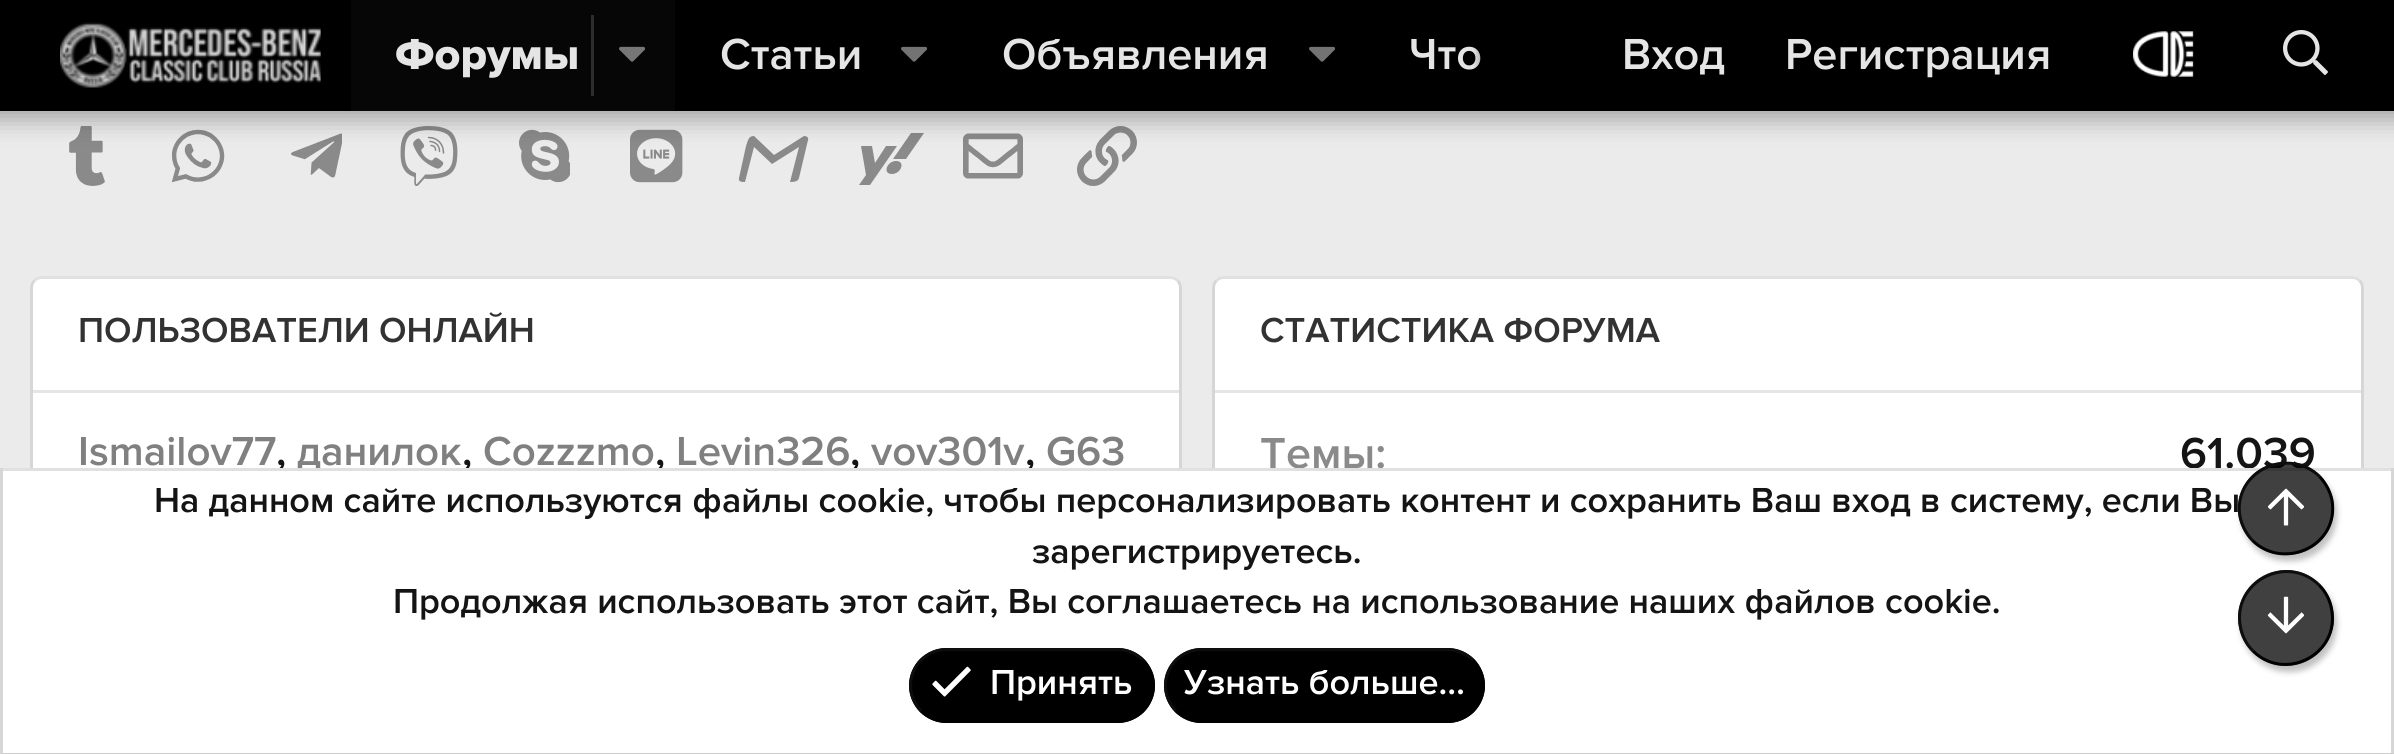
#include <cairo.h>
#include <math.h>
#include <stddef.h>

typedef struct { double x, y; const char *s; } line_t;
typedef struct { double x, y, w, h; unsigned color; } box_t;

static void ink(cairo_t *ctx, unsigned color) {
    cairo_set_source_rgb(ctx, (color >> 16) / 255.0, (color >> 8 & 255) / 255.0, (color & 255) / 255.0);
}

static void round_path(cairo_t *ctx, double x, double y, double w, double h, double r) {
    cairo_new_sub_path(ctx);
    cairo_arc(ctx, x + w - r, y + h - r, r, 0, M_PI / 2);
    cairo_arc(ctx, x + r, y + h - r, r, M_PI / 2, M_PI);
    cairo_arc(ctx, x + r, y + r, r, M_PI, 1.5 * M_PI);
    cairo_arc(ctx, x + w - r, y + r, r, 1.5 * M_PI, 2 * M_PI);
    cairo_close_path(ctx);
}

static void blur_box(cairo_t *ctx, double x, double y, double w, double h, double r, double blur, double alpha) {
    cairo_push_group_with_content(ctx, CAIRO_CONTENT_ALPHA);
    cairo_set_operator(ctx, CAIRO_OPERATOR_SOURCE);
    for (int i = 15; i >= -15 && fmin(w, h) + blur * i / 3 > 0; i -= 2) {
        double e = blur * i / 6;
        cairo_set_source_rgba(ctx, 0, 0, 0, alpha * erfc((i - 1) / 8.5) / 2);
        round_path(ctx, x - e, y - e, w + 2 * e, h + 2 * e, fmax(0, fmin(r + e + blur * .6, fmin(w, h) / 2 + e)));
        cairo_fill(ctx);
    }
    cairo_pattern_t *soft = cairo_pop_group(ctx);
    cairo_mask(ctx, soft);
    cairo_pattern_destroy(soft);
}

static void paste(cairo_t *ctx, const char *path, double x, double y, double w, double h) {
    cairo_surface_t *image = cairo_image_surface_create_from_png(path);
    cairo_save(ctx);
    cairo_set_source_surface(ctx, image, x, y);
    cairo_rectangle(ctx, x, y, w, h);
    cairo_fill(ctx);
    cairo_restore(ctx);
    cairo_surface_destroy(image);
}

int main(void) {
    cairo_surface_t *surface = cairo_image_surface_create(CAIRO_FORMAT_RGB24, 2394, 754);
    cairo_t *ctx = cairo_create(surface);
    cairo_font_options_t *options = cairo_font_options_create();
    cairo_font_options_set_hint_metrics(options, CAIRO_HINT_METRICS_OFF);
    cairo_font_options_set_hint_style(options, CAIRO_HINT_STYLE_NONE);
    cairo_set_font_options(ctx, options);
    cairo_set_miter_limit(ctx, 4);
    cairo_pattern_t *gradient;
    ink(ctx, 0xEBEBEB);
    cairo_paint(ctx);
    paste(ctx, "media/7.png", 69, 126, 36, 60);
    paste(ctx, "media/8.png", 171, 129, 54, 54);
    paste(ctx, "media/9.png", 291, 133, 51, 45);
    paste(ctx, "media/10.png", 400, 126, 58, 60);
    paste(ctx, "media/11.png", 519, 129, 51, 54);
    paste(ctx, "media/12.png", 630, 129, 53, 54);
    ink(ctx, 0x8A8A8A);
    cairo_new_path(ctx);
    cairo_move_to(ctx, 808, 140);
    cairo_line_to(ctx, 799, 178);
    cairo_curve_to(ctx, 798, 182, 793, 182, 790, 182);
    cairo_line_to(ctx, 799, 147);
    cairo_line_to(ctx, 772, 164);
    cairo_line_to(ctx, 754, 147);
    cairo_line_to(ctx, 745, 182);
    cairo_curve_to(ctx, 742, 182, 738, 182, 739, 178);
    cairo_line_to(ctx, 746, 146);
    cairo_curve_to(ctx, 748, 141, 748, 136, 754, 136);
    cairo_line_to(ctx, 774, 155);
    cairo_line_to(ctx, 804, 136);
    cairo_curve_to(ctx, 806, 136, 809, 137, 808, 140);
    cairo_close_path(ctx);
    cairo_fill(ctx);
    cairo_new_path(ctx);
    cairo_move_to(ctx, 911, 133);
    cairo_line_to(ctx, 893, 159);
    cairo_line_to(ctx, 906, 159);
    cairo_line_to(ctx, 924, 133);
    cairo_close_path(ctx);
    cairo_move_to(ctx, 861, 146);
    cairo_line_to(ctx, 866, 175);
    cairo_line_to(ctx, 859, 185);
    cairo_line_to(ctx, 870, 185);
    cairo_line_to(ctx, 897, 146);
    cairo_line_to(ctx, 886, 146);
    cairo_line_to(ctx, 875, 163);
    cairo_line_to(ctx, 872, 146);
    cairo_close_path(ctx);
    cairo_move_to(ctx, 896, 161);
    cairo_curve_to(ctx, 887, 161, 882, 174, 892, 174);
    cairo_curve_to(ctx, 901, 174, 906, 161, 896, 161);
    cairo_close_path(ctx);
    cairo_fill(ctx);
    paste(ctx, "media/13.png", 963, 133, 60, 46);
    paste(ctx, "media/14.png", 1077, 126, 60, 60);
    ink(ctx, 0x000000);
    blur_box(ctx, -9, -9, 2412, 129, 0, 12, 0.3);
    ink(ctx, 0x000000);
    cairo_rectangle(ctx, 0, 0, 2394, 111);
    cairo_fill(ctx);
    paste(ctx, "media/1.png", 60, 22, 261, 66);
    ink(ctx, 0x060606);
    cairo_rectangle(ctx, 351, 0, 324, 111);
    cairo_fill(ctx);
    cairo_select_font_face(ctx, "Proxima Nova ExtraBold", CAIRO_FONT_SLANT_NORMAL, CAIRO_FONT_WEIGHT_NORMAL);
    cairo_set_font_size(ctx, 45);
    ink(ctx, 0xE5E5E5);
    cairo_move_to(ctx, 395, 69);
    cairo_show_text(ctx, "Форумы");
    ink(ctx, 0x2D2D2D);
    cairo_rectangle(ctx, 591, 15, 3, 81);
    cairo_fill(ctx);
    paste(ctx, "media/2.png", 619, 46, 27, 16);
    cairo_select_font_face(ctx, "Proxima Nova SemiBold", CAIRO_FONT_SLANT_NORMAL, CAIRO_FONT_WEIGHT_NORMAL);
    ink(ctx, 0xE5E5E5);
    cairo_move_to(ctx, 720, 69);
    cairo_show_text(ctx, "Статьи");
    paste(ctx, "media/3.png", 901, 46, 27, 16);
    cairo_move_to(ctx, 1002, 69);
    cairo_show_text(ctx, "Объявления");
    paste(ctx, "media/4.png", 1309, 46, 26, 16);
    cairo_move_to(ctx, 1409, 69);
    cairo_show_text(ctx, "Что");
    gradient = cairo_pattern_create_linear(1473, 56, 1593, 56);
    cairo_pattern_add_color_stop_rgba(gradient, 0, 0, 0, 0, 0);
    cairo_pattern_add_color_stop_rgba(gradient, 0.33, 0, 0, 0, 1);
    cairo_set_source(ctx, gradient);
    cairo_pattern_destroy(gradient);
    cairo_rectangle(ctx, 1474, 48, 7, 21);
    cairo_fill(ctx);
    ink(ctx, 0xE5E5E5);
    cairo_move_to(ctx, 1622, 69);
    cairo_show_text(ctx, "Вход");
    cairo_move_to(ctx, 1785, 69);
    cairo_show_text(ctx, "Регистрация");
    paste(ctx, "media/5.png", 2133, 31, 61, 46);
    paste(ctx, "media/6.png", 2283, 30, 45, 45);
    ink(ctx, 0xFFFFFF);
    round_path(ctx, 30, 276, 1152, 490, 12);
    cairo_fill(ctx);
    cairo_new_path(ctx);
    cairo_move_to(ctx, 34.5, 280.5);
    cairo_curve_to(ctx, 36.5, 278.5, 39, 277.5, 42, 277.5);
    cairo_line_to(ctx, 1170, 277.5);
    cairo_curve_to(ctx, 1173, 277.5, 1175.5, 278.5, 1177.5, 280.5);
    ink(ctx, 0xE0E0E0);
    cairo_set_line_width(ctx, 3);
    cairo_stroke(ctx);
    cairo_new_path(ctx);
    cairo_move_to(ctx, 1177.5, 280.5);
    cairo_curve_to(ctx, 1179.5, 282.5, 1180.5, 285, 1180.5, 288);
    cairo_line_to(ctx, 1180.5, 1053);
    cairo_curve_to(ctx, 1180.5, 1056, 1179.5, 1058.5, 1177.5, 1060.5);
    ink(ctx, 0xD6D6D6);
    cairo_stroke(ctx);
    cairo_new_path(ctx);
    cairo_move_to(ctx, 34.5, 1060.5);
    cairo_curve_to(ctx, 32.5, 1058.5, 31.5, 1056, 31.5, 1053);
    cairo_line_to(ctx, 31.5, 288);
    cairo_curve_to(ctx, 31.5, 285, 32.5, 282.5, 34.5, 280.5);
    cairo_stroke(ctx);
    ink(ctx, 0xE5E5E5);
    cairo_rectangle(ctx, 33, 390, 1146, 3);
    cairo_fill(ctx);
    cairo_set_font_size(ctx, 36);
    ink(ctx, 0x323232);
    cairo_move_to(ctx, 78, 342);
    cairo_show_text(ctx, "ПОЛЬЗОВАТЕЛИ ОНЛАЙН");
    cairo_set_font_size(ctx, 42);
    ink(ctx, 0x808080);
    cairo_move_to(ctx, 78, 465);
    cairo_show_text(ctx, "Ismailov77");
    ink(ctx, 0x141414);
    cairo_move_to(ctx, 276, 465);
    cairo_show_text(ctx, ",");
    ink(ctx, 0x808080);
    cairo_move_to(ctx, 297, 465);
    cairo_show_text(ctx, "данилок");
    ink(ctx, 0x141414);
    cairo_move_to(ctx, 462, 465);
    cairo_show_text(ctx, ",");
    ink(ctx, 0x808080);
    cairo_move_to(ctx, 483, 465);
    cairo_show_text(ctx, "Cozzzmo");
    ink(ctx, 0x141414);
    cairo_move_to(ctx, 655, 465);
    cairo_show_text(ctx, ",");
    ink(ctx, 0x808080);
    cairo_move_to(ctx, 676, 465);
    cairo_show_text(ctx, "Levin326");
    ink(ctx, 0x141414);
    cairo_move_to(ctx, 850, 465);
    cairo_show_text(ctx, ",");
    ink(ctx, 0x808080);
    cairo_move_to(ctx, 871, 465);
    cairo_show_text(ctx, "vov301v");
    ink(ctx, 0x141414);
    cairo_move_to(ctx, 1025, 465);
    cairo_show_text(ctx, ",");
    ink(ctx, 0x808080);
    cairo_move_to(ctx, 1046, 465);
    cairo_show_text(ctx, "G63");
    ink(ctx, 0xFFFFFF);
    round_path(ctx, 1212, 276, 1152, 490, 12);
    cairo_fill(ctx);
    cairo_new_path(ctx);
    cairo_move_to(ctx, 1216.5, 280.5);
    cairo_curve_to(ctx, 1218.5, 278.5, 1221, 277.5, 1224, 277.5);
    cairo_line_to(ctx, 2352, 277.5);
    cairo_curve_to(ctx, 2355, 277.5, 2357.5, 278.5, 2359.5, 280.5);
    ink(ctx, 0xE0E0E0);
    cairo_stroke(ctx);
    cairo_new_path(ctx);
    cairo_move_to(ctx, 2359.5, 280.5);
    cairo_curve_to(ctx, 2361.5, 282.5, 2362.5, 285, 2362.5, 288);
    cairo_line_to(ctx, 2362.5, 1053);
    cairo_curve_to(ctx, 2362.5, 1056, 2361.5, 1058.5, 2359.5, 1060.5);
    ink(ctx, 0xD6D6D6);
    cairo_stroke(ctx);
    cairo_new_path(ctx);
    cairo_move_to(ctx, 1216.5, 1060.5);
    cairo_curve_to(ctx, 1214.5, 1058.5, 1213.5, 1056, 1213.5, 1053);
    cairo_line_to(ctx, 1213.5, 288);
    cairo_curve_to(ctx, 1213.5, 285, 1214.5, 282.5, 1216.5, 280.5);
    cairo_stroke(ctx);
    ink(ctx, 0xE5E5E5);
    cairo_rectangle(ctx, 1215, 390, 1146, 3);
    cairo_fill(ctx);
    cairo_set_font_size(ctx, 36);
    ink(ctx, 0x323232);
    cairo_move_to(ctx, 1260, 342);
    cairo_show_text(ctx, "СТАТИСТИКА ФОРУМА");
    cairo_set_font_size(ctx, 45);
    ink(ctx, 0x8A8A8A);
    cairo_move_to(ctx, 1260, 468);
    cairo_show_text(ctx, "Темы:");
    ink(ctx, 0x141414);
    cairo_move_to(ctx, 2180, 468);
    cairo_show_text(ctx, "61.039");
    {
        static const box_t items[] = {
            {3, 471, 2388, 282, 0xFFFFFF},
            {0, 468, 2394, 3, 0xE0E0E0},
            {2391, 468, 3, 286, 0xD6D6D6},
            {0, 753, 2394, 1, 0xCCCCCC},
            {0, 468, 3, 286, 0xD6D6D6},
        };
        for (size_t i = 0; i < sizeof items / sizeof *items; i++) {
            ink(ctx, items[i].color);
            cairo_rectangle(ctx, items[i].x, items[i].y, items[i].w, items[i].h);
            cairo_fill(ctx);
        }
    }
    cairo_set_font_size(ctx, 36);
    ink(ctx, 0x141414);
    {
        static const line_t items[] = {
            {154, 512, "На данном сайте используются файлы cookie, чтобы персонализировать контент и сохранить Ваш вход в систему, если Вы"},
            {1032, 563, "зарегистрируетесь."},
            {393, 613, "Продолжая использовать этот сайт, Вы соглашаетесь на использование наших файлов cookie."},
        };
        for (size_t i = 0; i < sizeof items / sizeof *items; i++) {
            cairo_move_to(ctx, items[i].x, items[i].y);
            cairo_show_text(ctx, items[i].s);
        }
    }
    ink(ctx, 0x000000);
    round_path(ctx, 909, 648, 246, 75, 37.5);
    cairo_fill(ctx);
    cairo_new_path(ctx);
    cairo_move_to(ctx, 1143, 660);
    cairo_curve_to(ctx, 1149.5, 667, 1153.5, 676, 1153.5, 685.5);
    cairo_curve_to(ctx, 1153.5, 695, 1149.5, 704, 1143, 711);
    cairo_curve_to(ctx, 1136, 717.5, 1127, 721.5, 1117.5, 721.5);
    cairo_line_to(ctx, 946.5, 721.5);
    cairo_curve_to(ctx, 937, 721.5, 928, 717.5, 921, 711);
    cairo_stroke(ctx);
    cairo_new_path(ctx);
    cairo_move_to(ctx, 921, 711);
    cairo_curve_to(ctx, 914.5, 704, 910.5, 695, 910.5, 685.5);
    cairo_curve_to(ctx, 910.5, 676, 914.5, 667, 921, 660);
    cairo_curve_to(ctx, 928, 653.5, 937, 649.5, 946.5, 649.5);
    cairo_line_to(ctx, 1117.5, 649.5);
    cairo_curve_to(ctx, 1127, 649.5, 1136, 653.5, 1143, 660);
    ink(ctx, 0x0D0D0D);
    cairo_stroke(ctx);
    paste(ctx, "media/15.png", 932, 666, 39, 31);
    ink(ctx, 0xFFFFFF);
    cairo_move_to(ctx, 990, 694);
    cairo_show_text(ctx, "Принять");
    ink(ctx, 0x000000);
    round_path(ctx, 1164, 648, 321, 75, 37.5);
    cairo_fill(ctx);
    cairo_new_path(ctx);
    cairo_move_to(ctx, 1473, 660);
    cairo_curve_to(ctx, 1479.5, 667, 1483.5, 676, 1483.5, 685.5);
    cairo_curve_to(ctx, 1483.5, 695, 1479.5, 704, 1473, 711);
    cairo_curve_to(ctx, 1466, 717.5, 1457, 721.5, 1447.5, 721.5);
    cairo_line_to(ctx, 1201.5, 721.5);
    cairo_curve_to(ctx, 1192, 721.5, 1183, 717.5, 1176, 711);
    cairo_stroke(ctx);
    cairo_new_path(ctx);
    cairo_move_to(ctx, 1176, 711);
    cairo_curve_to(ctx, 1169.5, 704, 1165.5, 695, 1165.5, 685.5);
    cairo_curve_to(ctx, 1165.5, 676, 1169.5, 667, 1176, 660);
    cairo_curve_to(ctx, 1183, 653.5, 1192, 649.5, 1201.5, 649.5);
    cairo_line_to(ctx, 1447.5, 649.5);
    cairo_curve_to(ctx, 1457, 649.5, 1466, 653.5, 1473, 660);
    ink(ctx, 0x0D0D0D);
    cairo_stroke(ctx);
    ink(ctx, 0xFFFFFF);
    cairo_move_to(ctx, 1184, 694);
    cairo_show_text(ctx, "Узнать больше…");
    cairo_save(ctx);
    cairo_set_fill_rule(ctx, CAIRO_FILL_RULE_EVEN_ODD);
    cairo_new_path(ctx);
    cairo_move_to(ctx, 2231, 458);
    cairo_line_to(ctx, 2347, 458);
    cairo_line_to(ctx, 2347, 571);
    cairo_line_to(ctx, 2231, 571);
    cairo_close_path(ctx);
    cairo_move_to(ctx, 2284.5, 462);
    cairo_line_to(ctx, 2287.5, 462);
    cairo_curve_to(ctx, 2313, 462, 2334, 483, 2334, 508.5);
    cairo_curve_to(ctx, 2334, 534, 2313, 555, 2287.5, 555);
    cairo_line_to(ctx, 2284.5, 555);
    cairo_curve_to(ctx, 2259, 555, 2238, 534, 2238, 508.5);
    cairo_curve_to(ctx, 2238, 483, 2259, 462, 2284.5, 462);
    cairo_close_path(ctx);
    cairo_clip(ctx);
    ink(ctx, 0x000000);
    blur_box(ctx, 2241, 468, 96, 93, 46.5, 3, 0.25);
    cairo_restore(ctx);
    cairo_set_source_rgba(ctx, 0, 0, 0, 0.75);
    round_path(ctx, 2238, 462, 96, 93, 46.5);
    cairo_fill(ctx);
    cairo_new_path(ctx);
    cairo_move_to(ctx, 2319.5, 476.5);
    cairo_curve_to(ctx, 2326.5, 484, 2331.5, 494, 2332.5, 504);
    cairo_curve_to(ctx, 2336.5, 547.5, 2282.5, 570, 2252.5, 540.5);
    ink(ctx, 0x000000);
    cairo_stroke(ctx);
    cairo_new_path(ctx);
    cairo_move_to(ctx, 2252.5, 540.5);
    cairo_curve_to(ctx, 2245.5, 533, 2240.5, 523, 2239.5, 513);
    cairo_curve_to(ctx, 2235.5, 469.5, 2289.5, 447, 2319.5, 476.5);
    ink(ctx, 0x0D0D0D);
    cairo_stroke(ctx);
    paste(ctx, "media/16.png", 2267, 488, 38, 38);
    cairo_save(ctx);
    cairo_set_fill_rule(ctx, CAIRO_FILL_RULE_EVEN_ODD);
    cairo_new_path(ctx);
    cairo_move_to(ctx, 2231, 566);
    cairo_line_to(ctx, 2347, 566);
    cairo_line_to(ctx, 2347, 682);
    cairo_line_to(ctx, 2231, 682);
    cairo_close_path(ctx);
    cairo_move_to(ctx, 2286, 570);
    cairo_curve_to(ctx, 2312.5, 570, 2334, 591.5, 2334, 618);
    cairo_curve_to(ctx, 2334, 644.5, 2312.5, 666, 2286, 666);
    cairo_curve_to(ctx, 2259.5, 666, 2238, 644.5, 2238, 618);
    cairo_curve_to(ctx, 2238, 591.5, 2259.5, 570, 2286, 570);
    cairo_close_path(ctx);
    cairo_clip(ctx);
    ink(ctx, 0x000000);
    blur_box(ctx, 2241, 576, 96, 96, 48, 3, 0.25);
    cairo_restore(ctx);
    cairo_set_source_rgba(ctx, 0, 0, 0, 0.75);
    cairo_arc(ctx, 2286, 618, 48, 0, 2 * M_PI);
    cairo_fill(ctx);
    cairo_new_path(ctx);
    cairo_move_to(ctx, 2319, 585);
    cairo_curve_to(ctx, 2325.5, 591.5, 2330, 600, 2331.5, 609);
    cairo_curve_to(ctx, 2340.5, 653.5, 2285.5, 683, 2253, 651);
    ink(ctx, 0x000000);
    cairo_stroke(ctx);
    cairo_new_path(ctx);
    cairo_move_to(ctx, 2253, 651);
    cairo_curve_to(ctx, 2246.5, 644.5, 2242, 636, 2240.5, 627);
    cairo_curve_to(ctx, 2231.5, 582.5, 2286.5, 553, 2319, 585);
    ink(ctx, 0x0D0D0D);
    cairo_stroke(ctx);
    paste(ctx, "media/17.png", 2267, 596, 38, 38);
    cairo_surface_write_to_png(surface, "image.png");
    cairo_font_options_destroy(options);
    cairo_destroy(ctx);
    cairo_surface_destroy(surface);
    return 0;
}
